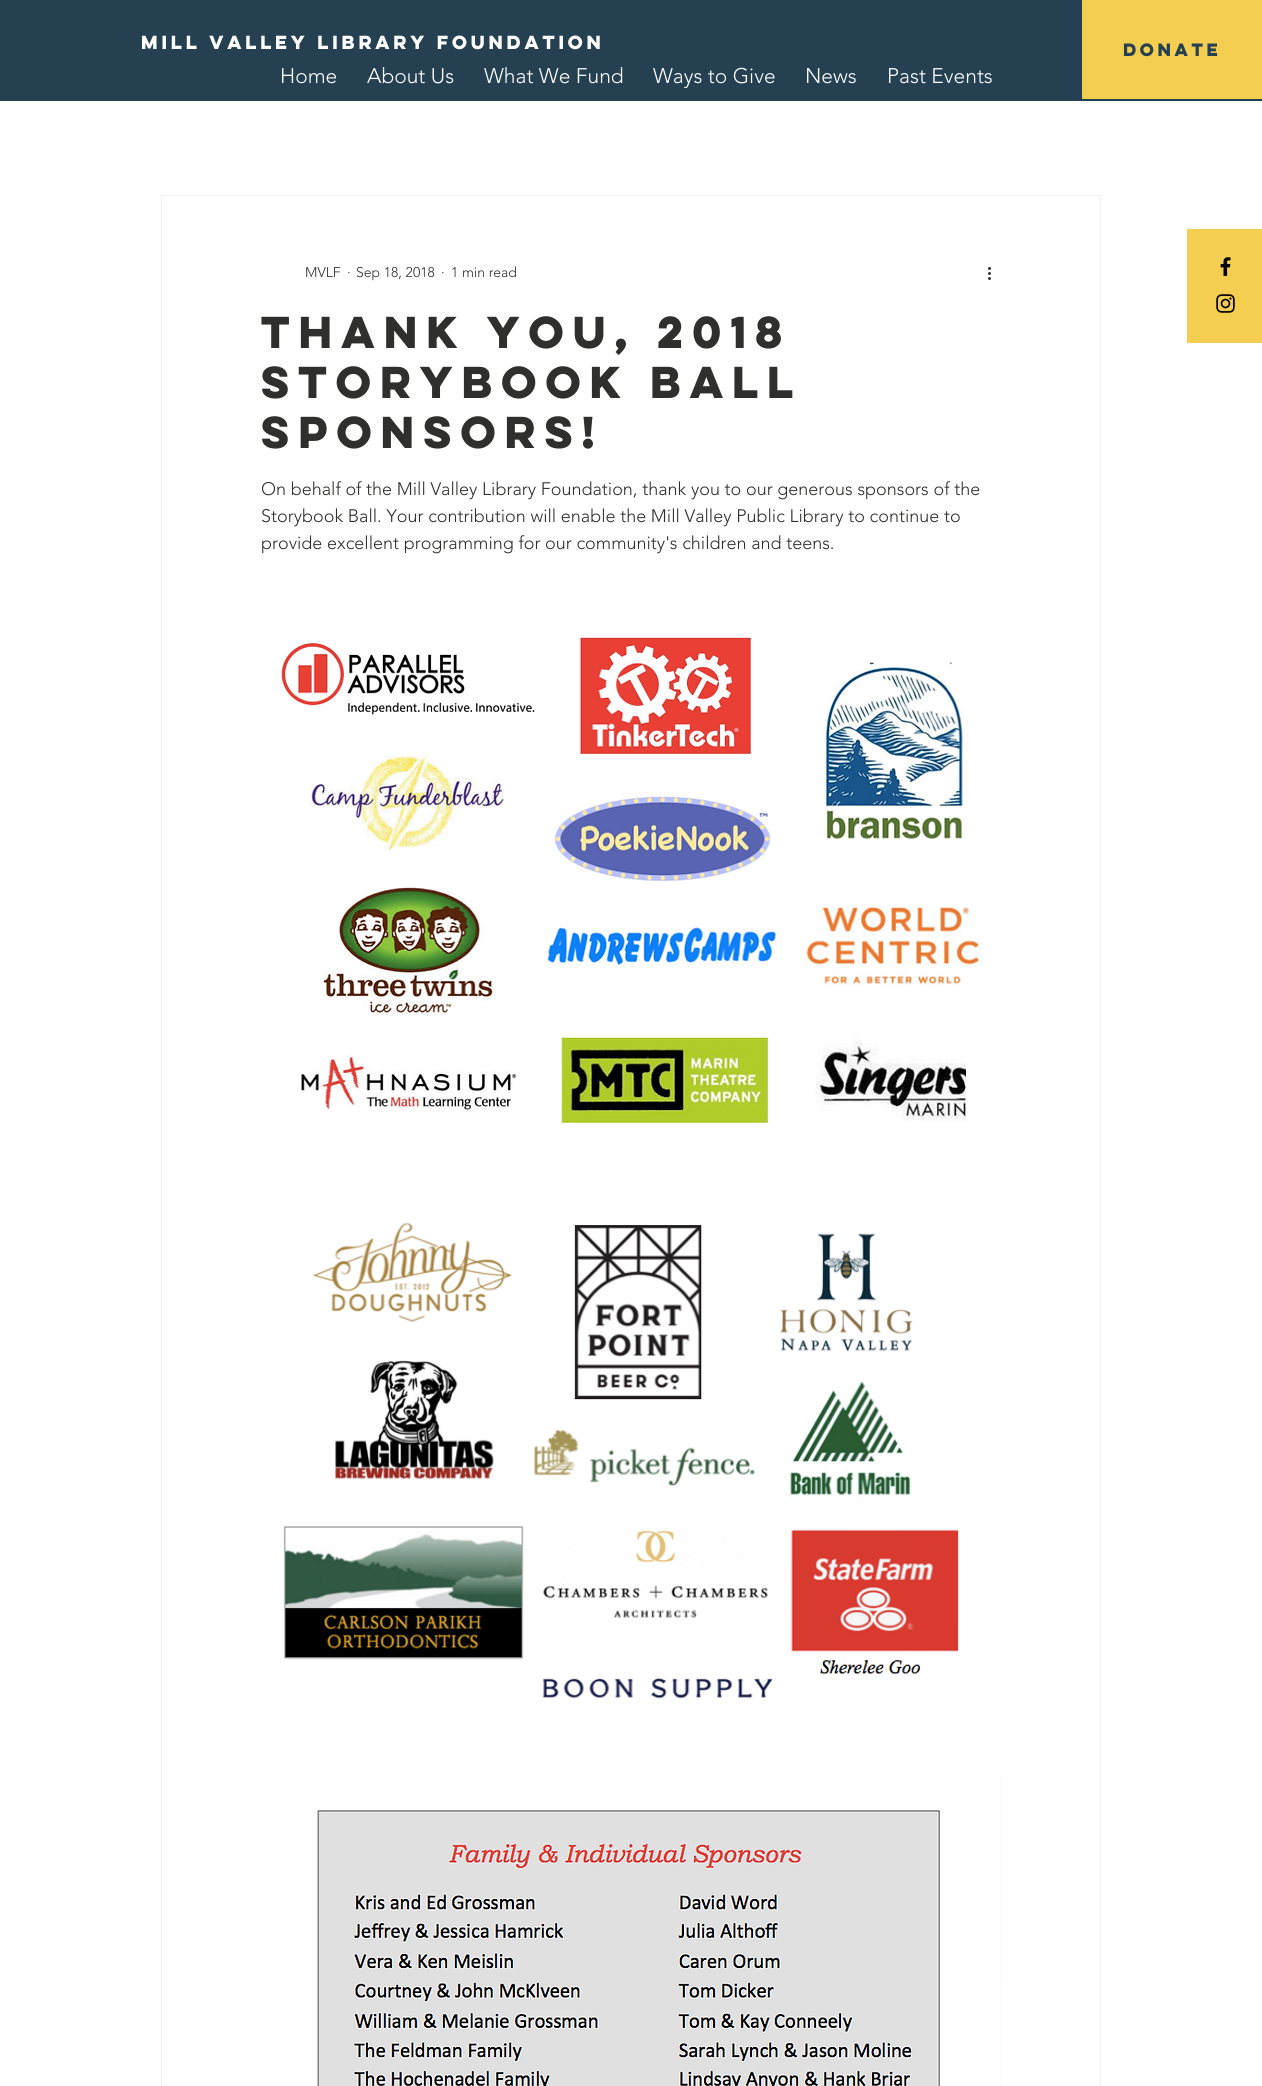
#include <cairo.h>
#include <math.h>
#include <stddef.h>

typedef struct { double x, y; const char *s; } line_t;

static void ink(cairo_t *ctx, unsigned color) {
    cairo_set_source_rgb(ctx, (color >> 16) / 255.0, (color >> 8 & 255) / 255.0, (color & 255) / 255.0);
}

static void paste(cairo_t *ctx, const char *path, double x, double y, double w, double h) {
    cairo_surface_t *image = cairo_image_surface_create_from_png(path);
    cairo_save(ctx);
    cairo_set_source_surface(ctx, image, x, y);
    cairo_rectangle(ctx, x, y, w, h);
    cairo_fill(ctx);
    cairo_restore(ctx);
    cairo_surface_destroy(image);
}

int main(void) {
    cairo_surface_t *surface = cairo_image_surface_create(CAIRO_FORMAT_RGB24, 1262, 2086);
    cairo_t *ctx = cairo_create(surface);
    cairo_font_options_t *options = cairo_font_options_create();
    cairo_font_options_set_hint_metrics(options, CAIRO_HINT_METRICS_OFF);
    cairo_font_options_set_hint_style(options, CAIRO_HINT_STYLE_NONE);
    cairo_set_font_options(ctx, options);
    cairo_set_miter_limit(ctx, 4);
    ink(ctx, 0xFFFFFF);
    cairo_paint(ctx);
    ink(ctx, 0x254151);
    cairo_rectangle(ctx, 0, 0, 1262, 101);
    cairo_fill(ctx);
    cairo_select_font_face(ctx, "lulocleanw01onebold", CAIRO_FONT_SLANT_NORMAL, CAIRO_FONT_WEIGHT_BOLD);
    cairo_set_font_size(ctx, 17);
    ink(ctx, 0xFFFFFF);
    cairo_move_to(ctx, 141, 49);
    cairo_show_text(ctx, "Mill Valley Library Foundation");
    cairo_select_font_face(ctx, "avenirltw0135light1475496 Light", CAIRO_FONT_SLANT_NORMAL, CAIRO_FONT_WEIGHT_NORMAL);
    cairo_set_font_size(ctx, 21);
    {
        static const line_t items[] = {
            {280, 83, "Home"},
            {367, 83, "About Us"},
            {484, 83, "What We Fund"},
            {653, 83, "Ways to Give"},
            {805, 83, "News"},
            {887, 83, "Past Events"},
        };
        for (size_t i = 0; i < sizeof items / sizeof *items; i++) {
            cairo_move_to(ctx, items[i].x, items[i].y);
            cairo_show_text(ctx, items[i].s);
        }
    }
    ink(ctx, 0xF4CE50);
    cairo_rectangle(ctx, 1082, 0, 180, 99);
    cairo_fill(ctx);
    cairo_select_font_face(ctx, "lulocleanw01onebold", CAIRO_FONT_SLANT_NORMAL, CAIRO_FONT_WEIGHT_BOLD);
    cairo_set_font_size(ctx, 16);
    ink(ctx, 0x254151);
    cairo_move_to(ctx, 1123, 56);
    cairo_show_text(ctx, "DONATE");
    ink(ctx, 0xF4CE50);
    cairo_rectangle(ctx, 1187, 229, 75, 114);
    cairo_fill(ctx);
    paste(ctx, "media/1.png", 1220, 257, 11, 20);
    paste(ctx, "media/2.png", 1216, 294, 19, 19);
    cairo_rectangle(ctx, 161.5, 195.5, 939, 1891);
    ink(ctx, 0xEFEFEE);
    cairo_set_line_width(ctx, 1);
    cairo_stroke(ctx);
    cairo_select_font_face(ctx, "avenirltw0135light1475496 Light", CAIRO_FONT_SLANT_NORMAL, CAIRO_FONT_WEIGHT_NORMAL);
    cairo_set_font_size(ctx, 14);
    ink(ctx, 0x2F2F2E);
    {
        static const line_t items[] = {
            {305, 277, "MVLF"},
            {347, 277, "·"},
            {356, 277, "Sep 18, 2018"},
            {441, 277, "·"},
            {451, 277, "1 min read"},
        };
        for (size_t i = 0; i < sizeof items / sizeof *items; i++) {
            cairo_move_to(ctx, items[i].x, items[i].y);
            cairo_show_text(ctx, items[i].s);
        }
    }
    paste(ctx, "media/3.png", 988, 267, 3, 13);
    cairo_select_font_face(ctx, "lulocleanw01onebold", CAIRO_FONT_SLANT_NORMAL, CAIRO_FONT_WEIGHT_BOLD);
    cairo_set_font_size(ctx, 40);
    {
        static const line_t items[] = {
            {261, 348, "Thank you, 2018"},
            {261, 398, "Storybook Ball"},
            {261, 448, "sponsors!"},
        };
        for (size_t i = 0; i < sizeof items / sizeof *items; i++) {
            cairo_move_to(ctx, items[i].x, items[i].y);
            cairo_show_text(ctx, items[i].s);
        }
    }
    cairo_select_font_face(ctx, "avenirltw0135light1475496 Light", CAIRO_FONT_SLANT_NORMAL, CAIRO_FONT_WEIGHT_NORMAL);
    cairo_set_font_size(ctx, 18);
    {
        static const line_t items[] = {
            {261, 495, "On behalf of the Mill Valley Library Foundation, thank you to our generous sponsors of the"},
            {261, 522, "Storybook Ball. Your contribution will enable the Mill Valley Public Library to continue to"},
            {261, 549, "provide excellent programming for our community's children and teens."},
        };
        for (size_t i = 0; i < sizeof items / sizeof *items; i++) {
            cairo_move_to(ctx, items[i].x, items[i].y);
            cairo_show_text(ctx, items[i].s);
        }
    }
    paste(ctx, "media/4.png", 281, 637, 702, 487);
    paste(ctx, "media/5.png", 283, 1222, 676, 477);
    paste(ctx, "media/6.png", 317, 1776, 684, 310);
    cairo_surface_write_to_png(surface, "image.png");
    cairo_font_options_destroy(options);
    cairo_destroy(ctx);
    cairo_surface_destroy(surface);
    return 0;
}
